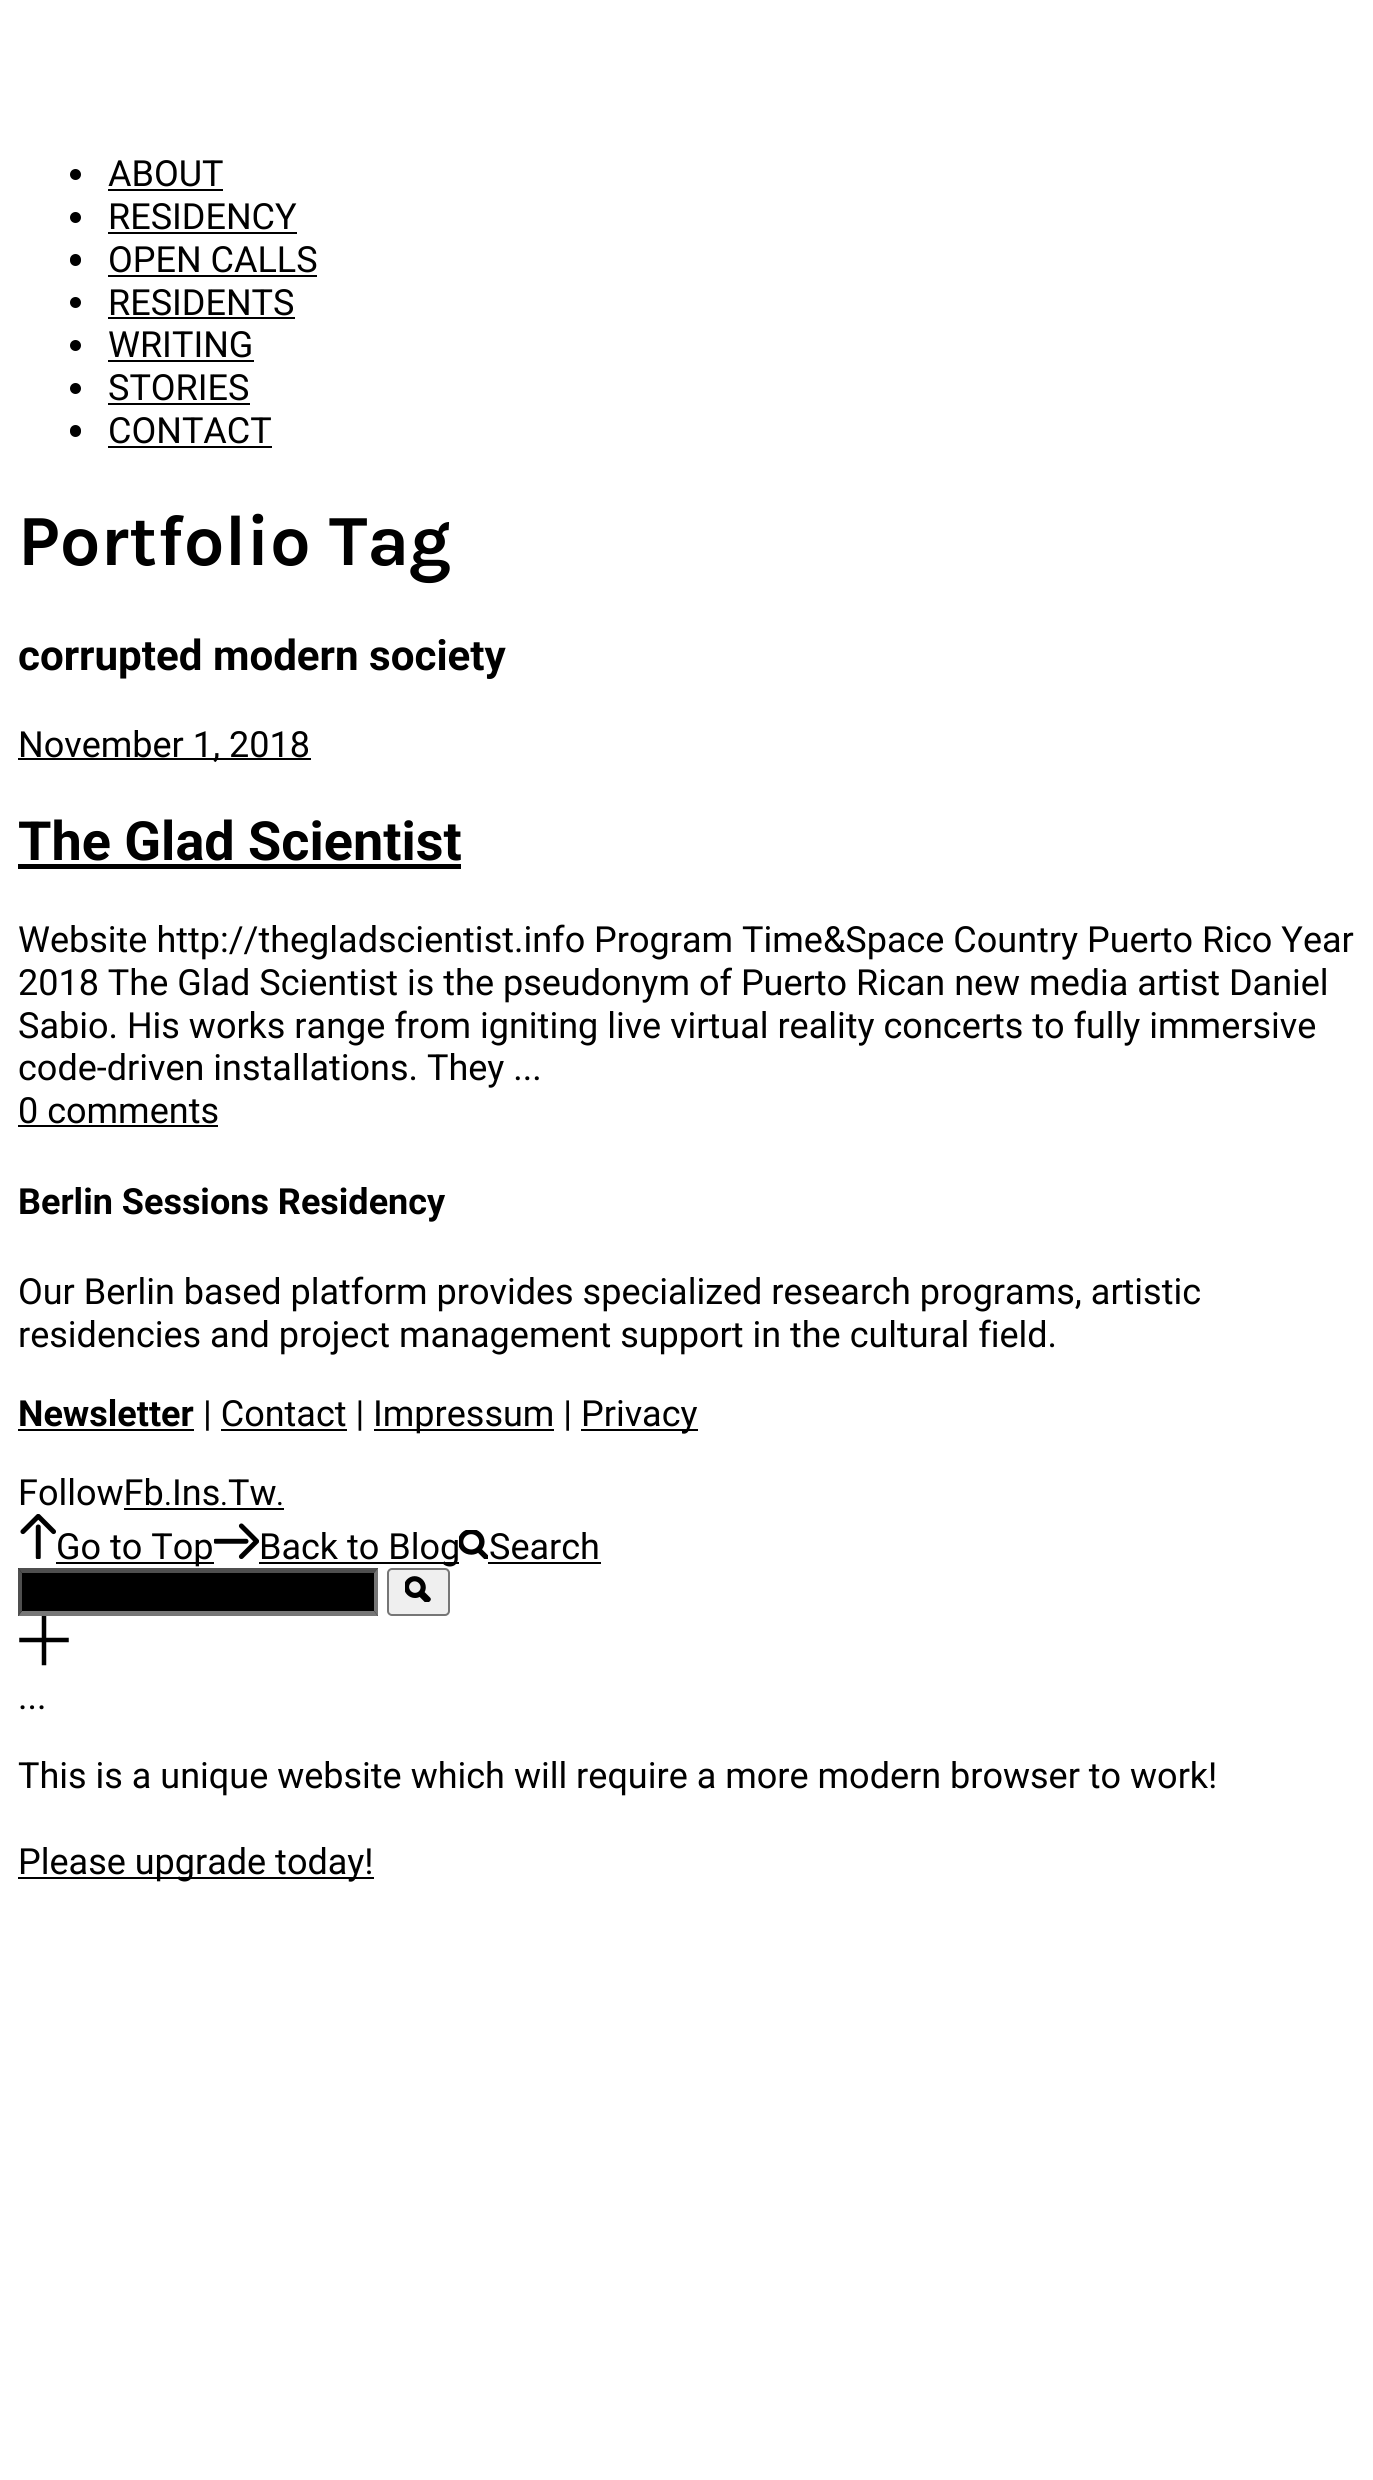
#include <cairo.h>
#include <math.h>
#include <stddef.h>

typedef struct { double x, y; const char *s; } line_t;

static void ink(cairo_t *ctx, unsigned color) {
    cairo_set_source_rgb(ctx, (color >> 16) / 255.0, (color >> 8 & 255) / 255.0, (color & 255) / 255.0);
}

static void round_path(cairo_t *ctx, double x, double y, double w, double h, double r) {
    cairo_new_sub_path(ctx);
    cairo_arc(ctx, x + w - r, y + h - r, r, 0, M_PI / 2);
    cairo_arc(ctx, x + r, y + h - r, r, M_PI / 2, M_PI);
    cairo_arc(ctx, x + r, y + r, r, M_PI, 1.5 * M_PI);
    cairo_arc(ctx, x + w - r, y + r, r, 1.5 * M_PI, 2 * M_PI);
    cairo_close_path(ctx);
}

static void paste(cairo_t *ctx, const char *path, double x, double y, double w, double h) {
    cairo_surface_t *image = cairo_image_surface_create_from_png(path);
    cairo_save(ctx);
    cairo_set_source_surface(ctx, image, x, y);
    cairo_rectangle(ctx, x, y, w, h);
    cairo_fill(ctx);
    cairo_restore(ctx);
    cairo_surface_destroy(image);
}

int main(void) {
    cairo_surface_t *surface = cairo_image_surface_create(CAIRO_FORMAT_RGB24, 1373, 2480);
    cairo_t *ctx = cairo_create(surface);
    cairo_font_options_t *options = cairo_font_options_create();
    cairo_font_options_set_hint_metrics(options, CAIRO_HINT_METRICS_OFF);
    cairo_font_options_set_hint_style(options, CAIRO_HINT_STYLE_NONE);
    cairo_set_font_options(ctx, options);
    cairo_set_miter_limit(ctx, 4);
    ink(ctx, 0xFFFFFF);
    cairo_paint(ctx);
    ink(ctx, 0x000000);
    cairo_arc(ctx, 75.5, 174.5, 5.5, 0, 2 * M_PI);
    cairo_fill(ctx);
    cairo_select_font_face(ctx, "Roboto", CAIRO_FONT_SLANT_NORMAL, CAIRO_FONT_WEIGHT_NORMAL);
    cairo_set_font_size(ctx, 36);
    cairo_move_to(ctx, 108, 186);
    cairo_show_text(ctx, "ABOUT");
    cairo_rectangle(ctx, 108, 189, 115, 2);
    cairo_fill(ctx);
    cairo_arc(ctx, 75.5, 217.5, 5.5, 0, 2 * M_PI);
    cairo_fill(ctx);
    cairo_move_to(ctx, 108, 229);
    cairo_show_text(ctx, "RESIDENCY");
    cairo_rectangle(ctx, 108, 232, 189, 2);
    cairo_fill(ctx);
    round_path(ctx, 70, 254, 11, 12, 5.5);
    cairo_fill(ctx);
    cairo_move_to(ctx, 108, 272);
    cairo_show_text(ctx, "OPEN CALLS");
    cairo_rectangle(ctx, 108, 275, 209, 2);
    cairo_fill(ctx);
    cairo_arc(ctx, 75.5, 302.5, 5.5, 0, 2 * M_PI);
    cairo_fill(ctx);
    cairo_move_to(ctx, 108, 315);
    cairo_show_text(ctx, "RESIDENTS");
    cairo_rectangle(ctx, 108, 317, 187, 2);
    cairo_fill(ctx);
    cairo_arc(ctx, 75.5, 345.5, 5.5, 0, 2 * M_PI);
    cairo_fill(ctx);
    cairo_move_to(ctx, 108, 357);
    cairo_show_text(ctx, "WRITING");
    cairo_rectangle(ctx, 108, 360, 146, 2);
    cairo_fill(ctx);
    cairo_arc(ctx, 75.5, 388.5, 5.5, 0, 2 * M_PI);
    cairo_fill(ctx);
    cairo_move_to(ctx, 108, 400);
    cairo_show_text(ctx, "STORIES");
    cairo_rectangle(ctx, 108, 403, 142, 2);
    cairo_fill(ctx);
    round_path(ctx, 70, 425, 11, 12, 5.5);
    cairo_fill(ctx);
    cairo_move_to(ctx, 108, 443);
    cairo_show_text(ctx, "CONTACT");
    cairo_rectangle(ctx, 108, 446, 164, 2);
    cairo_fill(ctx);
    cairo_select_font_face(ctx, "Karla", CAIRO_FONT_SLANT_NORMAL, CAIRO_FONT_WEIGHT_BOLD);
    cairo_set_font_size(ctx, 72);
    cairo_move_to(ctx, 18, 565);
    cairo_show_text(ctx, "Portfolio Tag");
    cairo_select_font_face(ctx, "Roboto", CAIRO_FONT_SLANT_NORMAL, CAIRO_FONT_WEIGHT_BOLD);
    cairo_set_font_size(ctx, 42.1);
    cairo_move_to(ctx, 18, 670);
    cairo_show_text(ctx, "corrupted modern society");
    cairo_rectangle(ctx, 18, 758, 293, 2);
    cairo_fill(ctx);
    cairo_select_font_face(ctx, "Roboto", CAIRO_FONT_SLANT_NORMAL, CAIRO_FONT_WEIGHT_NORMAL);
    cairo_set_font_size(ctx, 36);
    cairo_move_to(ctx, 18, 757);
    cairo_show_text(ctx, "November 1, 2018");
    cairo_select_font_face(ctx, "Roboto", CAIRO_FONT_SLANT_NORMAL, CAIRO_FONT_WEIGHT_BOLD);
    cairo_set_font_size(ctx, 54);
    cairo_move_to(ctx, 18, 860);
    cairo_show_text(ctx, "The Glad Scientist");
    cairo_rectangle(ctx, 18, 864, 443, 5);
    cairo_fill(ctx);
    cairo_select_font_face(ctx, "Roboto", CAIRO_FONT_SLANT_NORMAL, CAIRO_FONT_WEIGHT_NORMAL);
    cairo_set_font_size(ctx, 36);
    {
        static const line_t items[] = {
            {18, 952, "Website http://thegladscientist.info Program Time&Space Country Puerto Rico Year"},
            {18, 995, "2018 The Glad Scientist is the pseudonym of Puerto Rican new media artist Daniel"},
            {18, 1038, "Sabio. His works range from igniting live virtual reality concerts to fully immersive"},
            {18, 1080, "code-driven installations. They ..."},
            {18, 1123, "0 comments"},
        };
        for (size_t i = 0; i < sizeof items / sizeof *items; i++) {
            cairo_move_to(ctx, items[i].x, items[i].y);
            cairo_show_text(ctx, items[i].s);
        }
    }
    cairo_rectangle(ctx, 18, 1125, 200, 2);
    cairo_fill(ctx);
    cairo_select_font_face(ctx, "Roboto", CAIRO_FONT_SLANT_NORMAL, CAIRO_FONT_WEIGHT_BOLD);
    cairo_move_to(ctx, 18, 1214);
    cairo_show_text(ctx, "Berlin Sessions Residency");
    cairo_select_font_face(ctx, "Roboto", CAIRO_FONT_SLANT_NORMAL, CAIRO_FONT_WEIGHT_NORMAL);
    cairo_move_to(ctx, 18, 1304);
    cairo_show_text(ctx, "Our Berlin based platform provides specialized research programs, artistic");
    cairo_move_to(ctx, 18, 1347);
    cairo_show_text(ctx, "residencies and project management support in the cultural field.");
    cairo_select_font_face(ctx, "Roboto", CAIRO_FONT_SLANT_NORMAL, CAIRO_FONT_WEIGHT_BOLD);
    cairo_move_to(ctx, 18, 1426);
    cairo_show_text(ctx, "Newsletter");
    cairo_rectangle(ctx, 18, 1429, 176, 2);
    cairo_fill(ctx);
    cairo_select_font_face(ctx, "Roboto", CAIRO_FONT_SLANT_NORMAL, CAIRO_FONT_WEIGHT_NORMAL);
    cairo_move_to(ctx, 203, 1426);
    cairo_show_text(ctx, "| Contact |");
    cairo_rectangle(ctx, 374, 1429, 180, 2);
    cairo_fill(ctx);
    cairo_move_to(ctx, 373, 1426);
    cairo_show_text(ctx, "Impressum |");
    cairo_rectangle(ctx, 581, 1429, 117, 2);
    cairo_fill(ctx);
    cairo_move_to(ctx, 581, 1426);
    cairo_show_text(ctx, "Privacy");
    cairo_rectangle(ctx, 221, 1429, 126, 2);
    cairo_fill(ctx);
    cairo_move_to(ctx, 18, 1505);
    cairo_show_text(ctx, "FollowFb");
    cairo_set_font_size(ctx, 30);
    cairo_move_to(ctx, 164, 1505);
    cairo_show_text(ctx, ".");
    cairo_rectangle(ctx, 124, 1508, 160, 2);
    cairo_fill(ctx);
    cairo_set_font_size(ctx, 36);
    cairo_move_to(ctx, 172, 1505);
    cairo_show_text(ctx, "Ins");
    cairo_set_font_size(ctx, 30);
    cairo_move_to(ctx, 220, 1505);
    cairo_show_text(ctx, ".");
    cairo_set_font_size(ctx, 36);
    cairo_move_to(ctx, 228, 1505);
    cairo_show_text(ctx, "Tw");
    cairo_set_font_size(ctx, 30);
    cairo_move_to(ctx, 276, 1505);
    cairo_show_text(ctx, ".");
    paste(ctx, "media/1.png", 20, 1514, 36, 45);
    cairo_rectangle(ctx, 56, 1562, 158, 2);
    cairo_fill(ctx);
    cairo_set_font_size(ctx, 36);
    cairo_move_to(ctx, 56, 1559);
    cairo_show_text(ctx, "Go to Top");
    paste(ctx, "media/2.png", 214, 1523, 45, 36);
    cairo_rectangle(ctx, 259, 1562, 200, 2);
    cairo_fill(ctx);
    cairo_move_to(ctx, 259, 1559);
    cairo_show_text(ctx, "Back to Blog");
    paste(ctx, "media/3.png", 459, 1530, 29, 29);
    cairo_move_to(ctx, 489, 1559);
    cairo_show_text(ctx, "Search");
    cairo_rectangle(ctx, 488, 1562, 113, 2);
    cairo_fill(ctx);
    cairo_rectangle(ctx, 18, 1568, 360, 48);
    cairo_fill(ctx);
    ink(ctx, 0x4F4F4F);
    cairo_new_path(ctx);
    cairo_move_to(ctx, 18, 1568);
    cairo_line_to(ctx, 378, 1568);
    cairo_line_to(ctx, 374, 1573);
    cairo_line_to(ctx, 22, 1573);
    cairo_close_path(ctx);
    cairo_fill(ctx);
    ink(ctx, 0x767676);
    cairo_new_path(ctx);
    cairo_move_to(ctx, 378, 1568);
    cairo_line_to(ctx, 378, 1616);
    cairo_line_to(ctx, 374, 1611);
    cairo_line_to(ctx, 374, 1573);
    cairo_close_path(ctx);
    cairo_fill(ctx);
    cairo_new_path(ctx);
    cairo_move_to(ctx, 378, 1616);
    cairo_line_to(ctx, 18, 1616);
    cairo_line_to(ctx, 22, 1611);
    cairo_line_to(ctx, 374, 1611);
    cairo_close_path(ctx);
    cairo_fill(ctx);
    ink(ctx, 0x4F4F4F);
    cairo_new_path(ctx);
    cairo_move_to(ctx, 18, 1616);
    cairo_line_to(ctx, 18, 1568);
    cairo_line_to(ctx, 22, 1573);
    cairo_line_to(ctx, 22, 1611);
    cairo_close_path(ctx);
    cairo_fill(ctx);
    ink(ctx, 0xEFEFEF);
    round_path(ctx, 388, 1569, 61, 46, 4);
    cairo_fill_preserve(ctx);
    ink(ctx, 0x767676);
    cairo_stroke(ctx);
    paste(ctx, "media/4.png", 405, 1576, 26, 26);
    cairo_new_path(ctx);
    cairo_move_to(ctx, 21.5, 1640);
    cairo_line_to(ctx, 66.5, 1640);
    ink(ctx, 0x000000);
    cairo_set_line_width(ctx, 4.5);
    cairo_set_line_cap(ctx, CAIRO_LINE_CAP_SQUARE);
    cairo_stroke(ctx);
    cairo_save(ctx);
    cairo_rectangle(ctx, 18, 1616, 52, 51);
    cairo_clip(ctx);
    cairo_new_path(ctx);
    cairo_move_to(ctx, 44, 1618);
    cairo_line_to(ctx, 44, 1663);
    cairo_stroke(ctx);
    cairo_restore(ctx);
    cairo_move_to(ctx, 18, 1709);
    cairo_show_text(ctx, "...");
    cairo_move_to(ctx, 18, 1788);
    cairo_show_text(ctx, "This is a unique website which will require a more modern browser to work!");
    cairo_rectangle(ctx, 18, 1877, 356, 2);
    cairo_fill(ctx);
    cairo_move_to(ctx, 18, 1874);
    cairo_show_text(ctx, "Please upgrade today!");
    cairo_surface_write_to_png(surface, "image.png");
    cairo_font_options_destroy(options);
    cairo_destroy(ctx);
    cairo_surface_destroy(surface);
    return 0;
}
